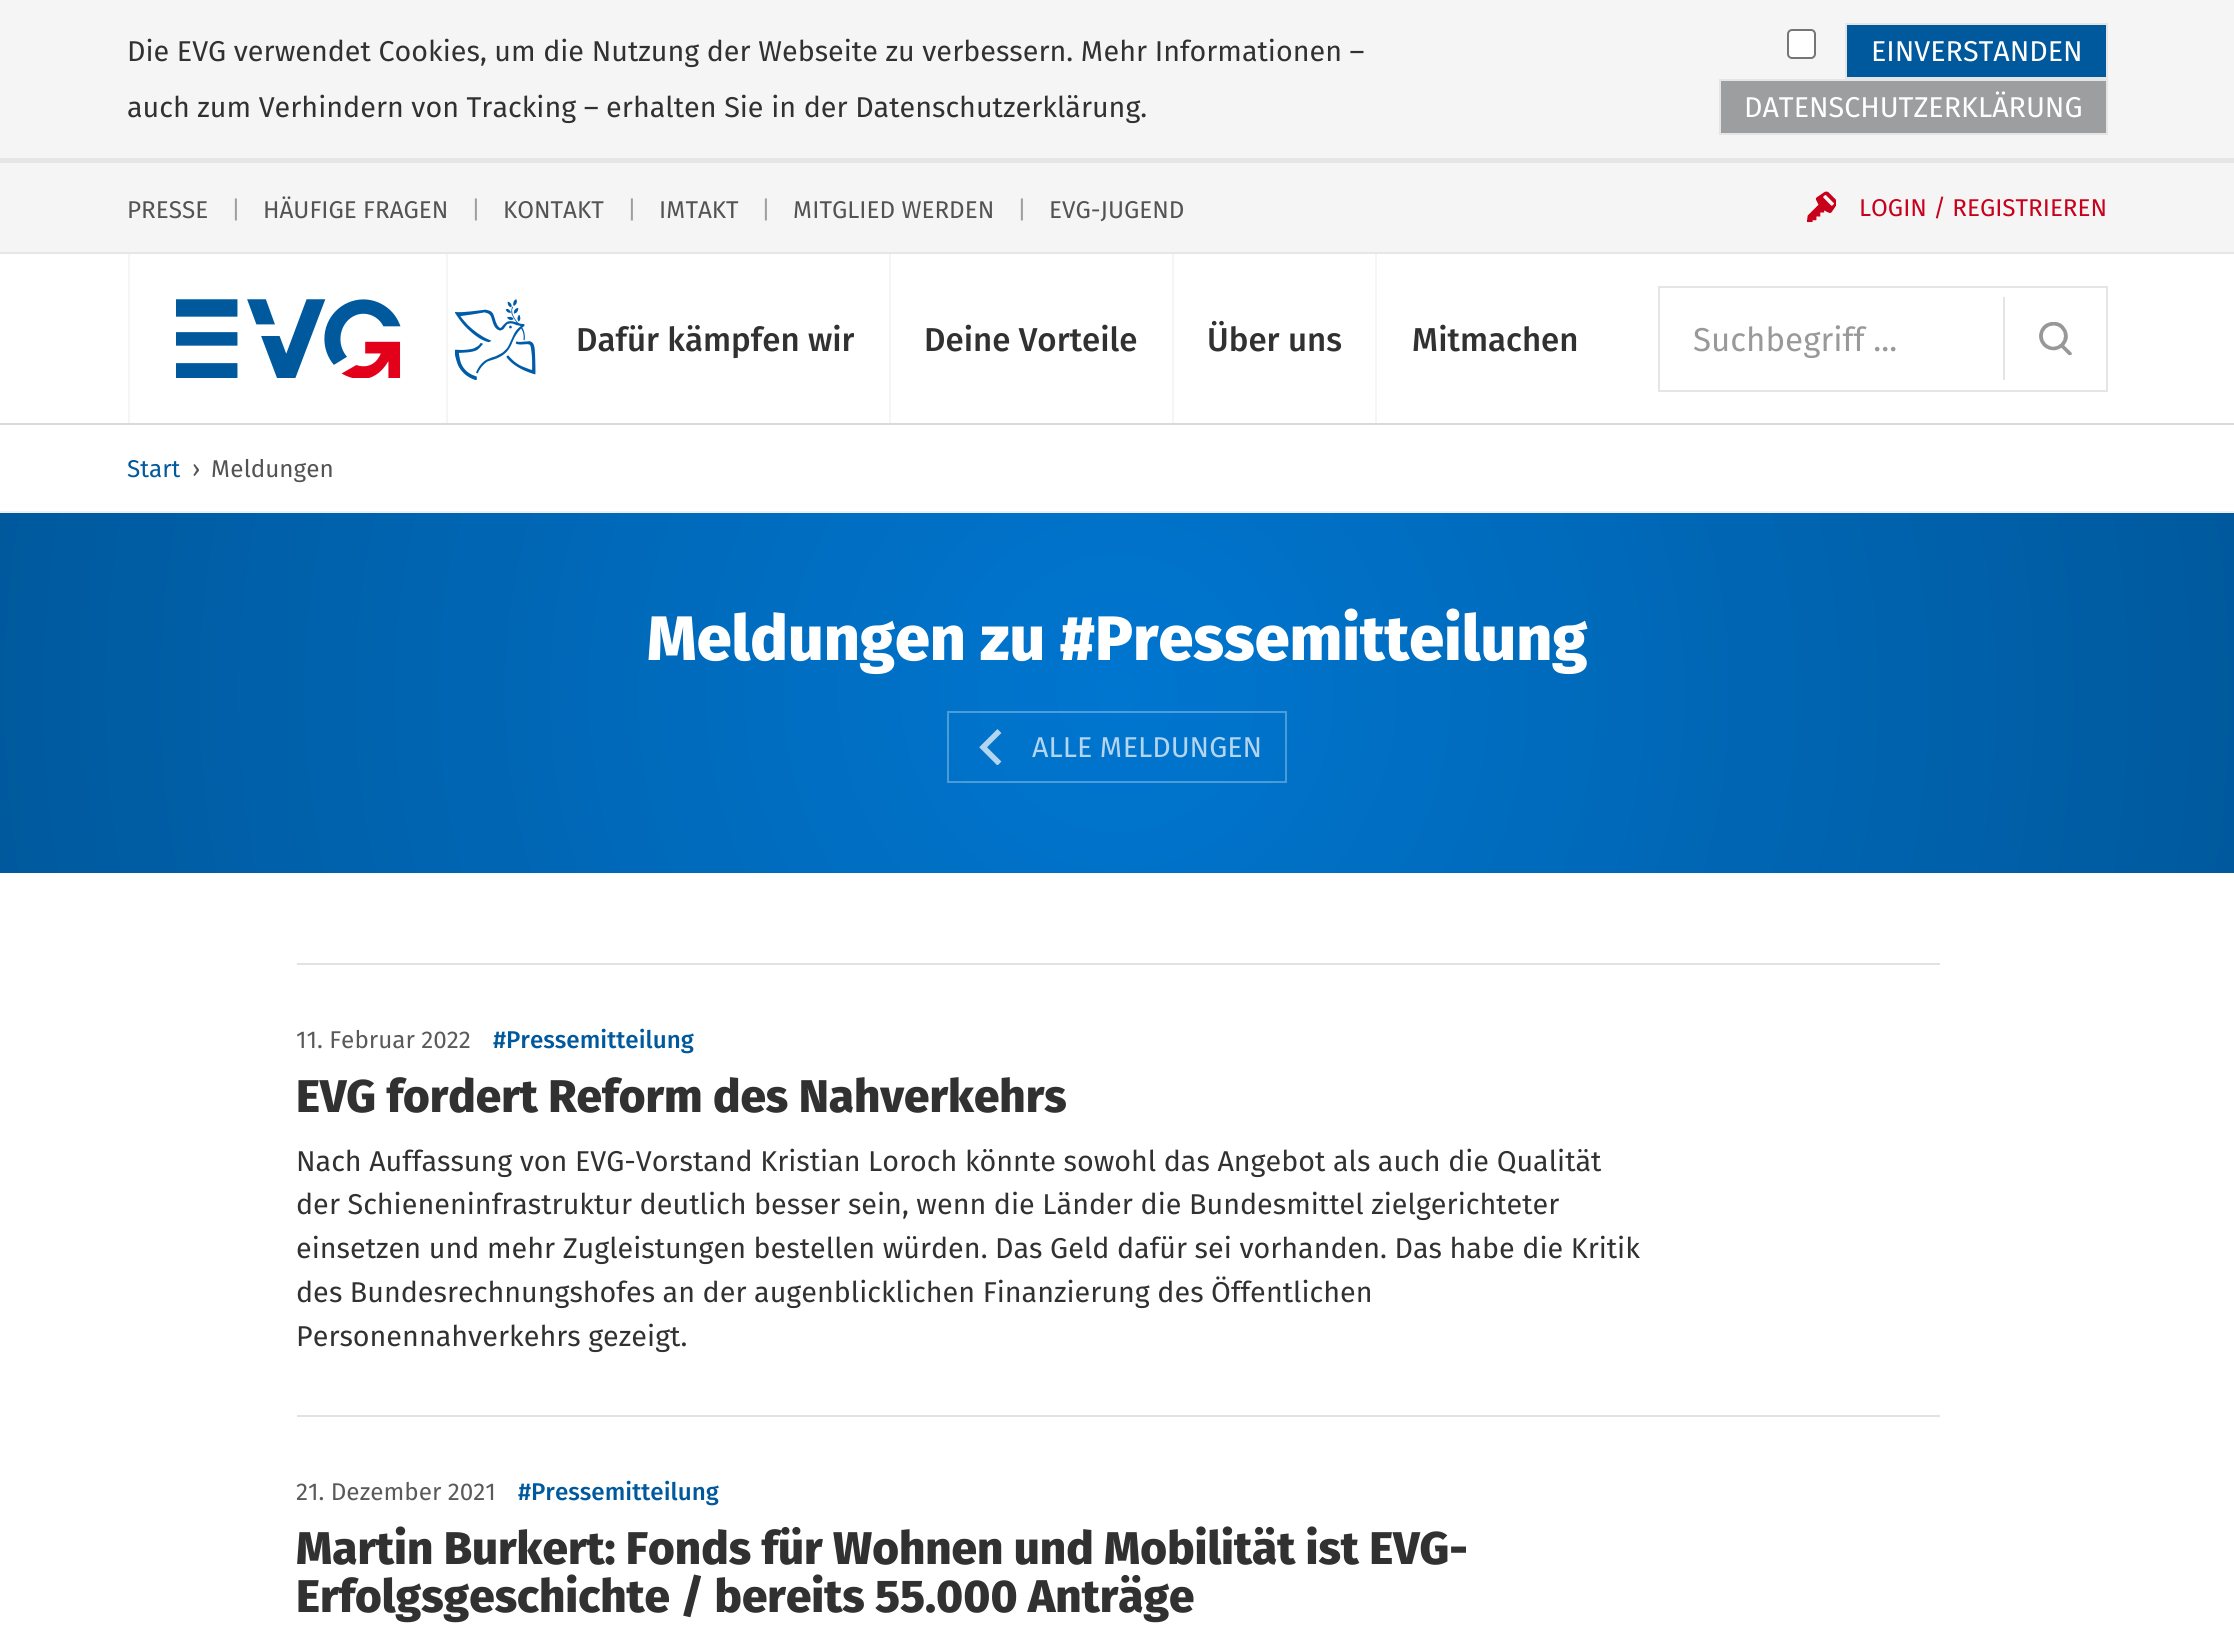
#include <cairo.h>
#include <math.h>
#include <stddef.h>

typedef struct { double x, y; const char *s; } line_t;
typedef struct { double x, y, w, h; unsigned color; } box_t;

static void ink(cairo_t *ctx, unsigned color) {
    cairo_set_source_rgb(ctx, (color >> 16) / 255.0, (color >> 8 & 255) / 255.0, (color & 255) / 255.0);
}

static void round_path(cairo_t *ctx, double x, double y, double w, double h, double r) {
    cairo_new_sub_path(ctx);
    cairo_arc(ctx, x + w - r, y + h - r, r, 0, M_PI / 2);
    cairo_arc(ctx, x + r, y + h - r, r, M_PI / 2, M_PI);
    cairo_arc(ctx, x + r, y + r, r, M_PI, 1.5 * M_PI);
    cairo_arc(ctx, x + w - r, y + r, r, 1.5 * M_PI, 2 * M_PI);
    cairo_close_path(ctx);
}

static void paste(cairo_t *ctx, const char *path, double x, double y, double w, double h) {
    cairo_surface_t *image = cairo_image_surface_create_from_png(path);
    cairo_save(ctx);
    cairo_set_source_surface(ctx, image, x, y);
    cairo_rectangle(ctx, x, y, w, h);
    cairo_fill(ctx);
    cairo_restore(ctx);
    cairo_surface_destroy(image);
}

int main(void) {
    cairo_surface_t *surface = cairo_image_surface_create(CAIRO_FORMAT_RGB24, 2234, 1641);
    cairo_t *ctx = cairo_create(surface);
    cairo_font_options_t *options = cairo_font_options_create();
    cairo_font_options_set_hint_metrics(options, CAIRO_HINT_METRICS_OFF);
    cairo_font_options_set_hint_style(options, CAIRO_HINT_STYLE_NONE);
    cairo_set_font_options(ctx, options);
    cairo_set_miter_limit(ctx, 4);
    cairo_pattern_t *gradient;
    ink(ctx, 0xFFFFFF);
    cairo_paint(ctx);
    ink(ctx, 0xF5F5F5);
    cairo_rectangle(ctx, 0, 0, 2234, 158);
    cairo_fill(ctx);
    ink(ctx, 0xE5E5E5);
    cairo_rectangle(ctx, 0, 158, 2234, 5);
    cairo_fill(ctx);
    cairo_select_font_face(ctx, "Fira Sans", CAIRO_FONT_SLANT_NORMAL, CAIRO_FONT_WEIGHT_NORMAL);
    cairo_set_font_size(ctx, 29.25);
    ink(ctx, 0x313131);
    cairo_move_to(ctx, 127, 61);
    cairo_show_text(ctx, "Die EVG verwendet Cookies, um die Nutzung der Webseite zu verbessern. Mehr Informationen –");
    cairo_move_to(ctx, 127, 117);
    cairo_show_text(ctx, "auch zum Verhindern von Tracking – erhalten Sie in der Datenschutzerklärung.");
    ink(ctx, 0xFFFFFF);
    round_path(ctx, 1788, 30, 27, 28, 4);
    cairo_fill_preserve(ctx);
    ink(ctx, 0x767676);
    cairo_stroke(ctx);
    ink(ctx, 0x00599D);
    cairo_rectangle(ctx, 1846, 24, 261, 54);
    cairo_fill_preserve(ctx);
    ink(ctx, 0xE5E5E5);
    cairo_stroke(ctx);
    ink(ctx, 0xFFFFFF);
    cairo_move_to(ctx, 1871, 61);
    cairo_show_text(ctx, "EINVERSTANDEN");
    ink(ctx, 0x9C9E9F);
    cairo_rectangle(ctx, 1720, 80, 387, 54);
    cairo_fill_preserve(ctx);
    ink(ctx, 0xE5E5E5);
    cairo_stroke(ctx);
    ink(ctx, 0xFFFFFF);
    cairo_move_to(ctx, 1744, 117);
    cairo_show_text(ctx, "DATENSCHUTZERKLÄRUNG");
    {
        static const box_t items[] = {
            {0, 423, 2234, 2, 0xD9D9D9},
            {0, 252, 2234, 2, 0xE6E6E6},
            {0, 163, 2234, 89, 0xF5F5F5},
        };
        for (size_t i = 0; i < sizeof items / sizeof *items; i++) {
            ink(ctx, items[i].color);
            cairo_rectangle(ctx, items[i].x, items[i].y, items[i].w, items[i].h);
            cairo_fill(ctx);
        }
    }
    cairo_set_font_size(ctx, 24.75);
    ink(ctx, 0x535353);
    cairo_move_to(ctx, 127, 218);
    cairo_show_text(ctx, "PRESSE");
    ink(ctx, 0x9C9E9F);
    cairo_move_to(ctx, 231, 218);
    cairo_show_text(ctx, "|");
    ink(ctx, 0x535353);
    cairo_move_to(ctx, 263, 218);
    cairo_show_text(ctx, "HÄUFIGE FRAGEN");
    ink(ctx, 0x9C9E9F);
    cairo_move_to(ctx, 471, 218);
    cairo_show_text(ctx, "|");
    ink(ctx, 0x535353);
    cairo_move_to(ctx, 503, 218);
    cairo_show_text(ctx, "KONTAKT");
    ink(ctx, 0x9C9E9F);
    cairo_move_to(ctx, 627, 218);
    cairo_show_text(ctx, "|");
    ink(ctx, 0x535353);
    cairo_move_to(ctx, 659, 218);
    cairo_show_text(ctx, "IMTAKT");
    ink(ctx, 0x9C9E9F);
    cairo_move_to(ctx, 761, 218);
    cairo_show_text(ctx, "|");
    ink(ctx, 0x535353);
    cairo_move_to(ctx, 793, 218);
    cairo_show_text(ctx, "MITGLIED WERDEN");
    ink(ctx, 0x9C9E9F);
    cairo_move_to(ctx, 1017, 218);
    cairo_show_text(ctx, "|");
    ink(ctx, 0x535353);
    cairo_move_to(ctx, 1049, 218);
    cairo_show_text(ctx, "EVG-JUGEND");
    ink(ctx, 0xF5F5F5);
    cairo_rectangle(ctx, 889, 254, 2, 169);
    cairo_fill(ctx);
    cairo_select_font_face(ctx, "Fira Sans Medium", CAIRO_FONT_SLANT_NORMAL, CAIRO_FONT_WEIGHT_NORMAL);
    cairo_set_font_size(ctx, 33.75);
    ink(ctx, 0x313131);
    cairo_move_to(ctx, 576, 351);
    cairo_show_text(ctx, "Dafür kämpfen wir");
    ink(ctx, 0xF5F5F5);
    cairo_rectangle(ctx, 1172, 254, 2, 169);
    cairo_fill(ctx);
    ink(ctx, 0x313131);
    cairo_move_to(ctx, 924, 351);
    cairo_show_text(ctx, "Deine Vorteile");
    ink(ctx, 0xF5F5F5);
    cairo_rectangle(ctx, 1375, 254, 2, 169);
    cairo_fill(ctx);
    ink(ctx, 0x313131);
    cairo_move_to(ctx, 1207, 351);
    cairo_show_text(ctx, "Über uns");
    cairo_move_to(ctx, 1412, 351);
    cairo_show_text(ctx, "Mitmachen");
    cairo_rectangle(ctx, 1659, 287, 448, 104);
    ink(ctx, 0xE5E5E5);
    cairo_stroke(ctx);
    cairo_select_font_face(ctx, "Fira Sans", CAIRO_FONT_SLANT_NORMAL, CAIRO_FONT_WEIGHT_NORMAL);
    ink(ctx, 0x999999);
    cairo_move_to(ctx, 1693, 351);
    cairo_show_text(ctx, "Suchbegriff ...");
    ink(ctx, 0xE5E5E5);
    cairo_rectangle(ctx, 2003, 297, 2, 83);
    cairo_fill(ctx);
    paste(ctx, "media/1.png", 2039, 322, 33, 34);
    paste(ctx, "media/2.png", 1807, 191, 29, 32);
    cairo_set_font_size(ctx, 24.75);
    ink(ctx, 0xC8001B);
    cairo_move_to(ctx, 1859, 216);
    cairo_show_text(ctx, "LOGIN / REGISTRIEREN");
    ink(ctx, 0xF5F5F5);
    cairo_rectangle(ctx, 446, 254, 2, 169);
    cairo_fill(ctx);
    cairo_rectangle(ctx, 128, 254, 2, 169);
    cairo_fill(ctx);
    paste(ctx, "media/3.png", 176, 299, 225, 79);
    paste(ctx, "media/4.png", 455, 299, 81, 81);
    ink(ctx, 0xF0F0F1);
    cairo_rectangle(ctx, 0, 511, 2234, 2);
    cairo_fill(ctx);
    ink(ctx, 0x00599D);
    cairo_move_to(ctx, 127, 477);
    cairo_show_text(ctx, "Start");
    ink(ctx, 0x535353);
    cairo_move_to(ctx, 192, 477);
    cairo_show_text(ctx, "›");
    cairo_move_to(ctx, 211, 477);
    cairo_show_text(ctx, "Meldungen");
    gradient = cairo_pattern_create_radial(1117, 693, 0, 1117, 693, 1132);
    cairo_pattern_add_color_stop_rgba(gradient, 0, 0, 0.463, 0.816, 1);
    cairo_pattern_add_color_stop_rgba(gradient, 1, 0, 0.349, 0.616, 1);
    cairo_set_source(ctx, gradient);
    cairo_pattern_destroy(gradient);
    cairo_rectangle(ctx, 0, 513, 2234, 360);
    cairo_fill(ctx);
    cairo_select_font_face(ctx, "Fira Sans ExtraBold", CAIRO_FONT_SLANT_NORMAL, CAIRO_FONT_WEIGHT_NORMAL);
    cairo_set_font_size(ctx, 64.75);
    ink(ctx, 0xFFFFFF);
    cairo_move_to(ctx, 647, 660);
    cairo_show_text(ctx, "Meldungen zu #Pressemitteilung");
    cairo_rectangle(ctx, 948, 712, 338, 70);
    cairo_set_source_rgba(ctx, 1, 1, 1, 0.3);
    cairo_stroke(ctx);
    paste(ctx, "media/5.png", 979, 729, 23, 36);
    cairo_select_font_face(ctx, "Fira Sans", CAIRO_FONT_SLANT_NORMAL, CAIRO_FONT_WEIGHT_NORMAL);
    cairo_set_font_size(ctx, 29.25);
    ink(ctx, 0xB3D5F0);
    cairo_move_to(ctx, 1032, 757);
    cairo_show_text(ctx, "ALLE MELDUNGEN");
    ink(ctx, 0xE1E2E2);
    cairo_rectangle(ctx, 297, 963, 1643, 2);
    cairo_fill(ctx);
    cairo_rectangle(ctx, 297, 1415, 1643, 2);
    cairo_fill(ctx);
    cairo_set_font_size(ctx, 24.75);
    ink(ctx, 0x5A5A5A);
    cairo_move_to(ctx, 296, 1048);
    cairo_show_text(ctx, "11. Februar 2022");
    cairo_select_font_face(ctx, "Fira Sans Medium", CAIRO_FONT_SLANT_NORMAL, CAIRO_FONT_WEIGHT_NORMAL);
    ink(ctx, 0x00599D);
    cairo_move_to(ctx, 493, 1048);
    cairo_show_text(ctx, "#Pressemitteilung");
    cairo_select_font_face(ctx, "Fira Sans ExtraBold", CAIRO_FONT_SLANT_NORMAL, CAIRO_FONT_WEIGHT_NORMAL);
    cairo_set_font_size(ctx, 47.25);
    ink(ctx, 0x313131);
    cairo_move_to(ctx, 296, 1112);
    cairo_show_text(ctx, "EVG fordert Reform des Nahverkehrs");
    cairo_select_font_face(ctx, "Fira Sans", CAIRO_FONT_SLANT_NORMAL, CAIRO_FONT_WEIGHT_NORMAL);
    cairo_set_font_size(ctx, 29.25);
    {
        static const line_t items[] = {
            {296, 1171, "Nach Auffassung von EVG-Vorstand Kristian Loroch könnte sowohl das Angebot als auch die Qualität"},
            {296, 1214, "der Schieneninfrastruktur deutlich besser sein, wenn die Länder die Bundesmittel zielgerichteter"},
            {296, 1258, "einsetzen und mehr Zugleistungen bestellen würden. Das Geld dafür sei vorhanden. Das habe die Kritik"},
            {296, 1302, "des Bundesrechnungshofes an der augenblicklichen Finanzierung des Öffentlichen"},
            {296, 1346, "Personennahverkehrs gezeigt."},
        };
        for (size_t i = 0; i < sizeof items / sizeof *items; i++) {
            cairo_move_to(ctx, items[i].x, items[i].y);
            cairo_show_text(ctx, items[i].s);
        }
    }
    cairo_set_font_size(ctx, 24.75);
    ink(ctx, 0x5A5A5A);
    cairo_move_to(ctx, 296, 1500);
    cairo_show_text(ctx, "21. Dezember 2021");
    cairo_select_font_face(ctx, "Fira Sans Medium", CAIRO_FONT_SLANT_NORMAL, CAIRO_FONT_WEIGHT_NORMAL);
    ink(ctx, 0x00599D);
    cairo_move_to(ctx, 518, 1500);
    cairo_show_text(ctx, "#Pressemitteilung");
    cairo_select_font_face(ctx, "Fira Sans ExtraBold", CAIRO_FONT_SLANT_NORMAL, CAIRO_FONT_WEIGHT_NORMAL);
    cairo_set_font_size(ctx, 47.25);
    ink(ctx, 0x313131);
    cairo_move_to(ctx, 296, 1564);
    cairo_show_text(ctx, "Martin Burkert: Fonds für Wohnen und Mobilität ist EVG-");
    cairo_move_to(ctx, 296, 1612);
    cairo_show_text(ctx, "Erfolgsgeschichte / bereits 55.000 Anträge");
    cairo_surface_write_to_png(surface, "image.png");
    cairo_font_options_destroy(options);
    cairo_destroy(ctx);
    cairo_surface_destroy(surface);
    return 0;
}
